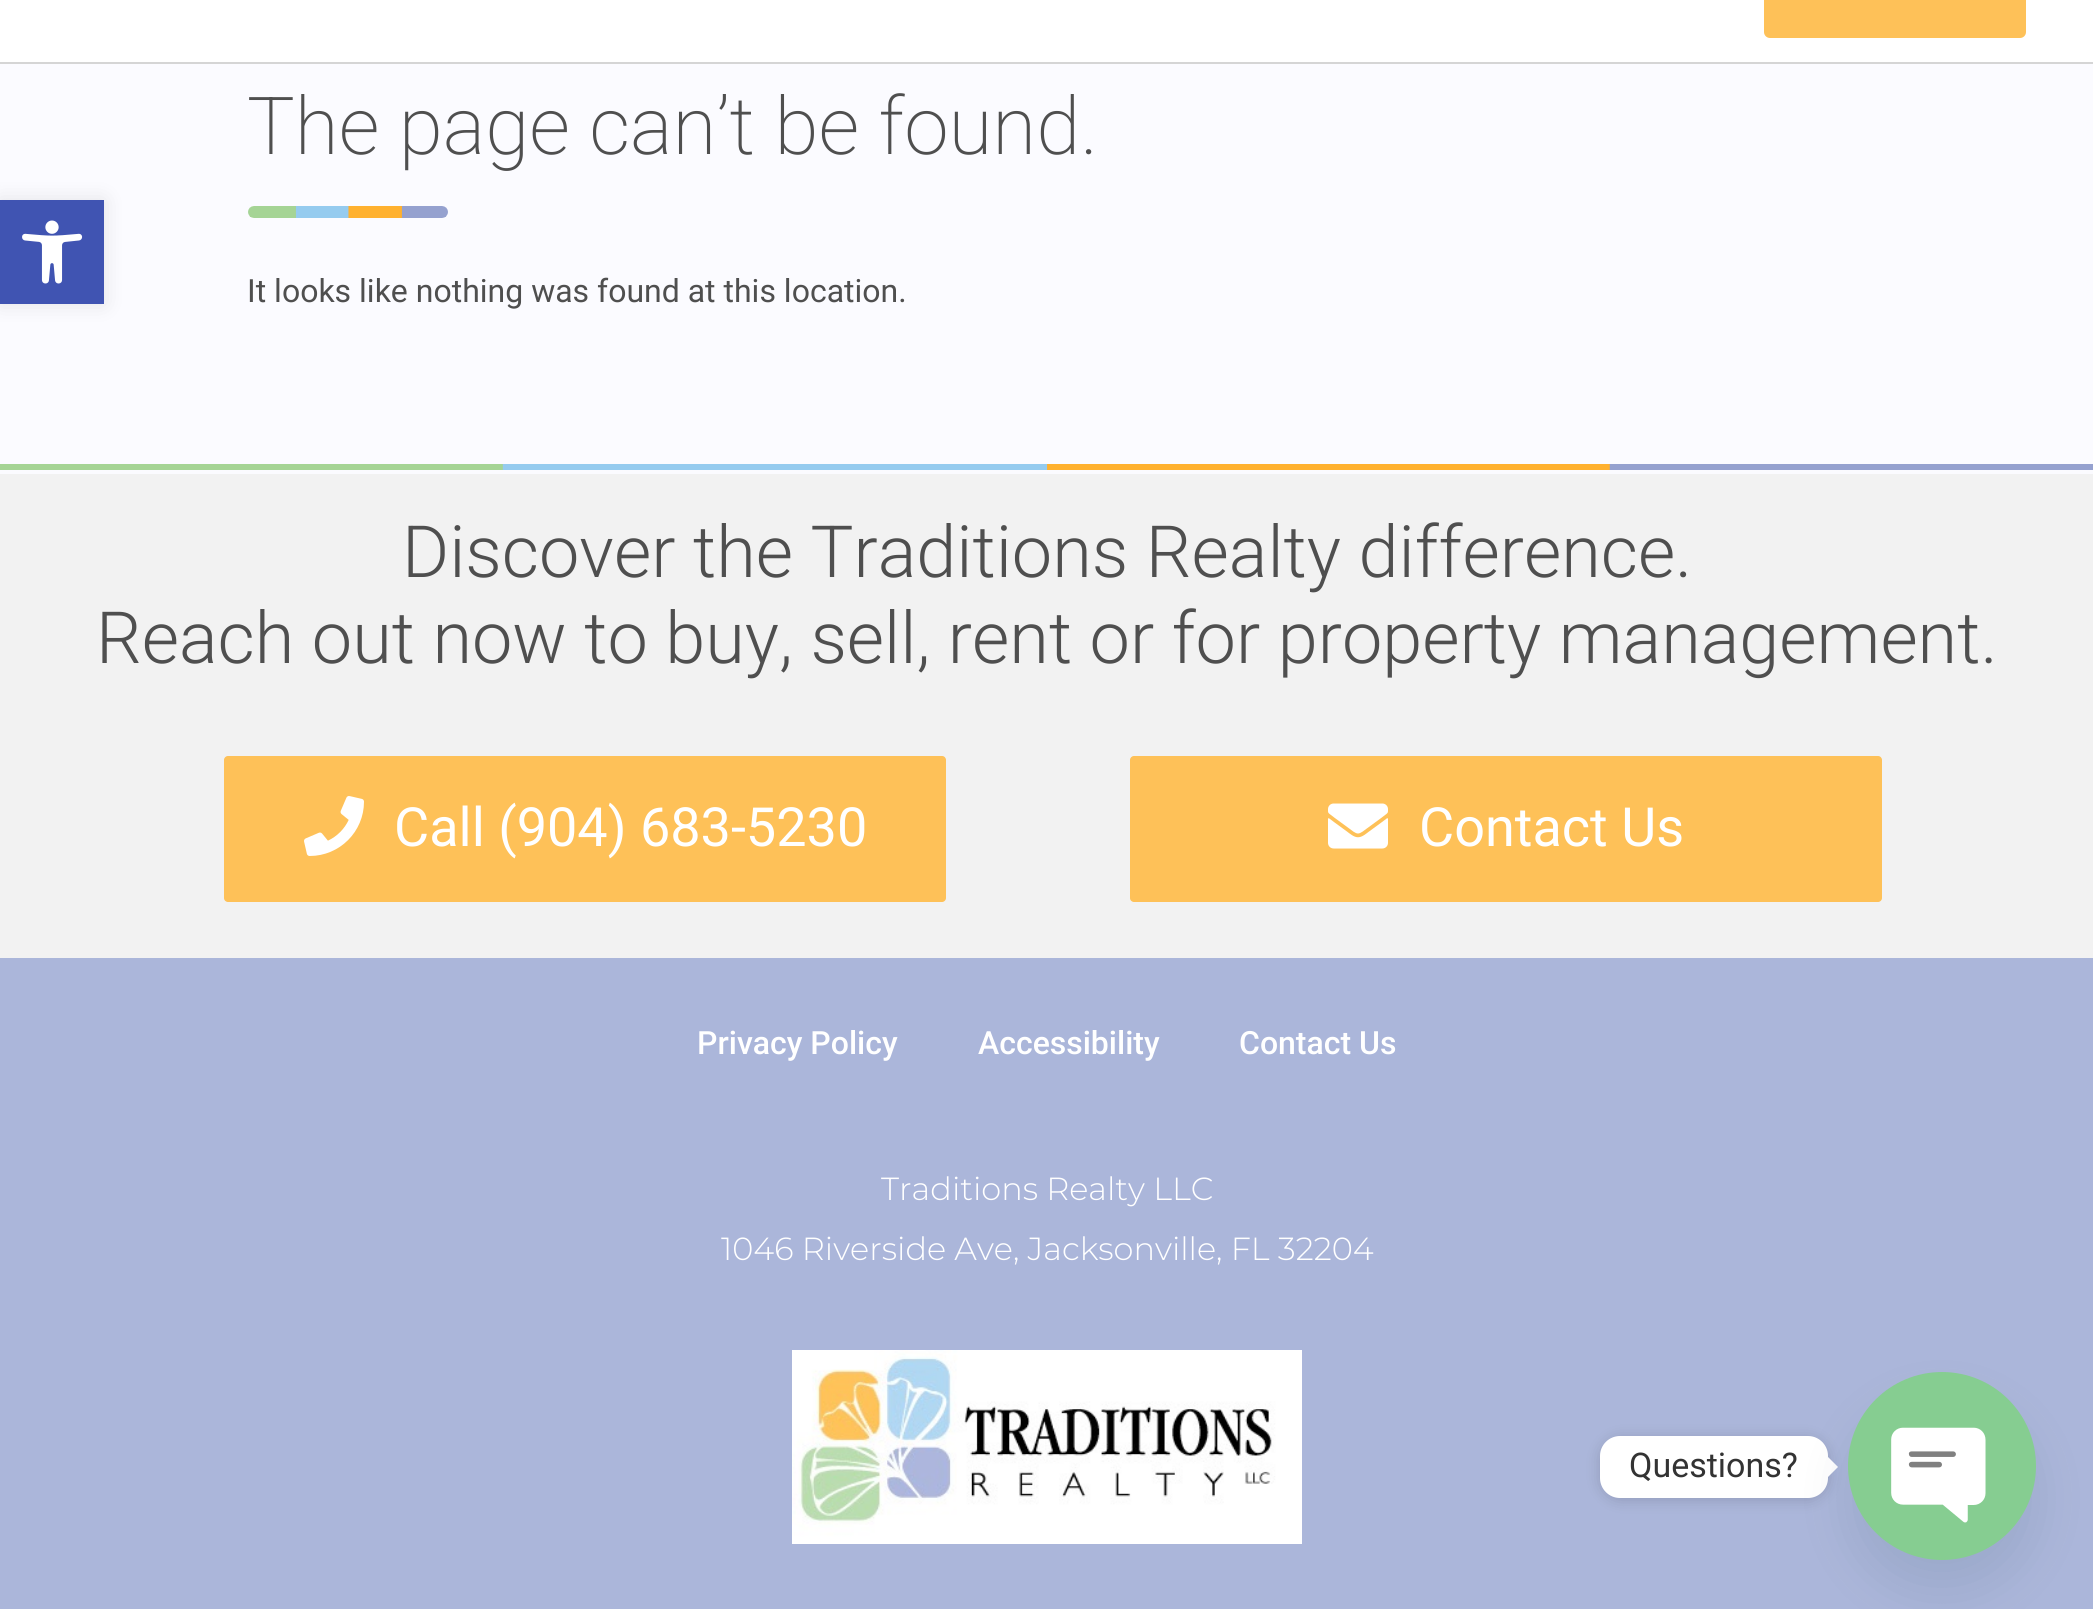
#include <cairo.h>
#include <math.h>
#include <stddef.h>

typedef struct { double x, y; const char *s; } line_t;

static void ink(cairo_t *ctx, unsigned color) {
    cairo_set_source_rgb(ctx, (color >> 16) / 255.0, (color >> 8 & 255) / 255.0, (color & 255) / 255.0);
}

static void round_path(cairo_t *ctx, double x, double y, double w, double h, double r) {
    cairo_new_sub_path(ctx);
    cairo_arc(ctx, x + w - r, y + h - r, r, 0, M_PI / 2);
    cairo_arc(ctx, x + r, y + h - r, r, M_PI / 2, M_PI);
    cairo_arc(ctx, x + r, y + r, r, M_PI, 1.5 * M_PI);
    cairo_arc(ctx, x + w - r, y + r, r, 1.5 * M_PI, 2 * M_PI);
    cairo_close_path(ctx);
}

static void blur_box(cairo_t *ctx, double x, double y, double w, double h, double r, double blur, double alpha) {
    cairo_push_group_with_content(ctx, CAIRO_CONTENT_ALPHA);
    cairo_set_operator(ctx, CAIRO_OPERATOR_SOURCE);
    for (int i = 15; i >= -15 && fmin(w, h) + blur * i / 3 > 0; i -= 2) {
        double e = blur * i / 6;
        cairo_set_source_rgba(ctx, 0, 0, 0, alpha * erfc((i - 1) / 8.5) / 2);
        round_path(ctx, x - e, y - e, w + 2 * e, h + 2 * e, fmax(0, fmin(r + e + blur * .6, fmin(w, h) / 2 + e)));
        cairo_fill(ctx);
    }
    cairo_pattern_t *soft = cairo_pop_group(ctx);
    cairo_mask(ctx, soft);
    cairo_pattern_destroy(soft);
}

static void paste(cairo_t *ctx, const char *path, double x, double y, double w, double h) {
    cairo_surface_t *image = cairo_image_surface_create_from_png(path);
    cairo_save(ctx);
    cairo_set_source_surface(ctx, image, x, y);
    cairo_rectangle(ctx, x, y, w, h);
    cairo_fill(ctx);
    cairo_restore(ctx);
    cairo_surface_destroy(image);
}

int main(void) {
    cairo_surface_t *surface = cairo_image_surface_create(CAIRO_FORMAT_RGB24, 2093, 1609);
    cairo_t *ctx = cairo_create(surface);
    cairo_font_options_t *options = cairo_font_options_create();
    cairo_font_options_set_hint_metrics(options, CAIRO_HINT_METRICS_OFF);
    cairo_font_options_set_hint_style(options, CAIRO_HINT_STYLE_NONE);
    cairo_set_font_options(ctx, options);
    cairo_set_miter_limit(ctx, 4);
    ink(ctx, 0xFBFBFF);
    cairo_paint(ctx);
    ink(ctx, 0xFFFFFF);
    cairo_rectangle(ctx, 0, 0, 2093, 62);
    cairo_fill(ctx);
    ink(ctx, 0xD5D5D5);
    cairo_rectangle(ctx, 0, 62, 2093, 2);
    cairo_fill(ctx);
    ink(ctx, 0xFEC158);
    round_path(ctx, 1764, -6, 262, 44, 6);
    cairo_fill(ctx);
    ink(ctx, 0x000000);
    blur_box(ctx, 0, 200, 104, 104, 0, 10, 0.1);
    ink(ctx, 0x4054B2);
    cairo_rectangle(ctx, 0, 200, 104, 104);
    cairo_fill(ctx);
    paste(ctx, "media/1.png", 22, 220, 61, 64);
    cairo_select_font_face(ctx, "Roboto ExtraLight", CAIRO_FONT_SLANT_NORMAL, CAIRO_FONT_WEIGHT_NORMAL);
    cairo_set_font_size(ctx, 80);
    ink(ctx, 0x4F4F4F);
    cairo_move_to(ctx, 247, 154);
    cairo_show_text(ctx, "The page can’t be found.");
    paste(ctx, "media/2.png", 248, 206, 200, 12);
    cairo_select_font_face(ctx, "Roboto", CAIRO_FONT_SLANT_NORMAL, CAIRO_FONT_WEIGHT_NORMAL);
    cairo_set_font_size(ctx, 32);
    cairo_move_to(ctx, 247, 302);
    cairo_show_text(ctx, "It looks like nothing was found at this location.");
    paste(ctx, "media/3.png", 0, 464, 2093, 6);
    ink(ctx, 0xF2F2F2);
    cairo_rectangle(ctx, 0, 474, 2093, 484);
    cairo_fill(ctx);
    cairo_select_font_face(ctx, "Roboto Light", CAIRO_FONT_SLANT_NORMAL, CAIRO_FONT_WEIGHT_NORMAL);
    cairo_set_font_size(ctx, 72);
    ink(ctx, 0x4F4F4F);
    cairo_move_to(ctx, 402, 577);
    cairo_show_text(ctx, "Discover the Traditions Realty difference.");
    cairo_move_to(ctx, 96, 663);
    cairo_show_text(ctx, "Reach out now to buy, sell, rent or for property management.");
    ink(ctx, 0xFEC158);
    round_path(ctx, 224, 756, 722, 146, 4);
    cairo_fill(ctx);
    paste(ctx, "media/4.png", 304, 796, 60, 60);
    cairo_select_font_face(ctx, "Roboto", CAIRO_FONT_SLANT_NORMAL, CAIRO_FONT_WEIGHT_NORMAL);
    cairo_set_font_size(ctx, 54);
    ink(ctx, 0xFFFFFF);
    cairo_move_to(ctx, 394, 846);
    cairo_show_text(ctx, "Call (904) 683-5230");
    ink(ctx, 0xFEC158);
    round_path(ctx, 1130, 756, 752, 146, 4);
    cairo_fill(ctx);
    paste(ctx, "media/5.png", 1328, 803, 60, 46);
    ink(ctx, 0xFFFFFF);
    cairo_move_to(ctx, 1419, 846);
    cairo_show_text(ctx, "Contact Us");
    ink(ctx, 0xABB6DA);
    cairo_rectangle(ctx, 0, 958, 2093, 651);
    cairo_fill(ctx);
    cairo_select_font_face(ctx, "Roboto Medium", CAIRO_FONT_SLANT_NORMAL, CAIRO_FONT_WEIGHT_NORMAL);
    cairo_set_font_size(ctx, 32);
    ink(ctx, 0xFFFFFF);
    {
        static const line_t items[] = {
            {697, 1054, "Privacy Policy"},
            {978, 1054, "Accessibility"},
            {1239, 1054, "Contact Us"},
        };
        for (size_t i = 0; i < sizeof items / sizeof *items; i++) {
            cairo_move_to(ctx, items[i].x, items[i].y);
            cairo_show_text(ctx, items[i].s);
        }
    }
    cairo_select_font_face(ctx, "Montserrat Light", CAIRO_FONT_SLANT_NORMAL, CAIRO_FONT_WEIGHT_NORMAL);
    cairo_move_to(ctx, 881, 1200);
    cairo_show_text(ctx, "Traditions Realty LLC");
    cairo_move_to(ctx, 721, 1260);
    cairo_show_text(ctx, "1046 Riverside Ave, Jacksonville, FL 32204");
    paste(ctx, "media/6.png", 792, 1350, 510, 194);
    ink(ctx, 0x000000);
    blur_box(ctx, 1600, 1438, 228, 62, 20, 7.5, 0.15);
    ink(ctx, 0xFFFFFF);
    round_path(ctx, 1600, 1436, 228, 62, 20);
    cairo_fill(ctx);
    cairo_select_font_face(ctx, "Roboto", CAIRO_FONT_SLANT_NORMAL, CAIRO_FONT_WEIGHT_NORMAL);
    cairo_set_font_size(ctx, 34);
    ink(ctx, 0x333333);
    cairo_move_to(ctx, 1629, 1477);
    cairo_show_text(ctx, "Questions?");
    ink(ctx, 0xFFFFFF);
    cairo_new_path(ctx);
    cairo_move_to(ctx, 1828, 1477);
    cairo_line_to(ctx, 1828, 1457);
    cairo_line_to(ctx, 1838, 1467);
    cairo_close_path(ctx);
    cairo_fill(ctx);
    ink(ctx, 0x49687E);
    blur_box(ctx, 1848, 1404, 188, 188, 94, 24, 0.16);
    paste(ctx, "media/7.png", 1848, 1372, 188, 188);
    cairo_surface_write_to_png(surface, "image.png");
    cairo_font_options_destroy(options);
    cairo_destroy(ctx);
    cairo_surface_destroy(surface);
    return 0;
}
